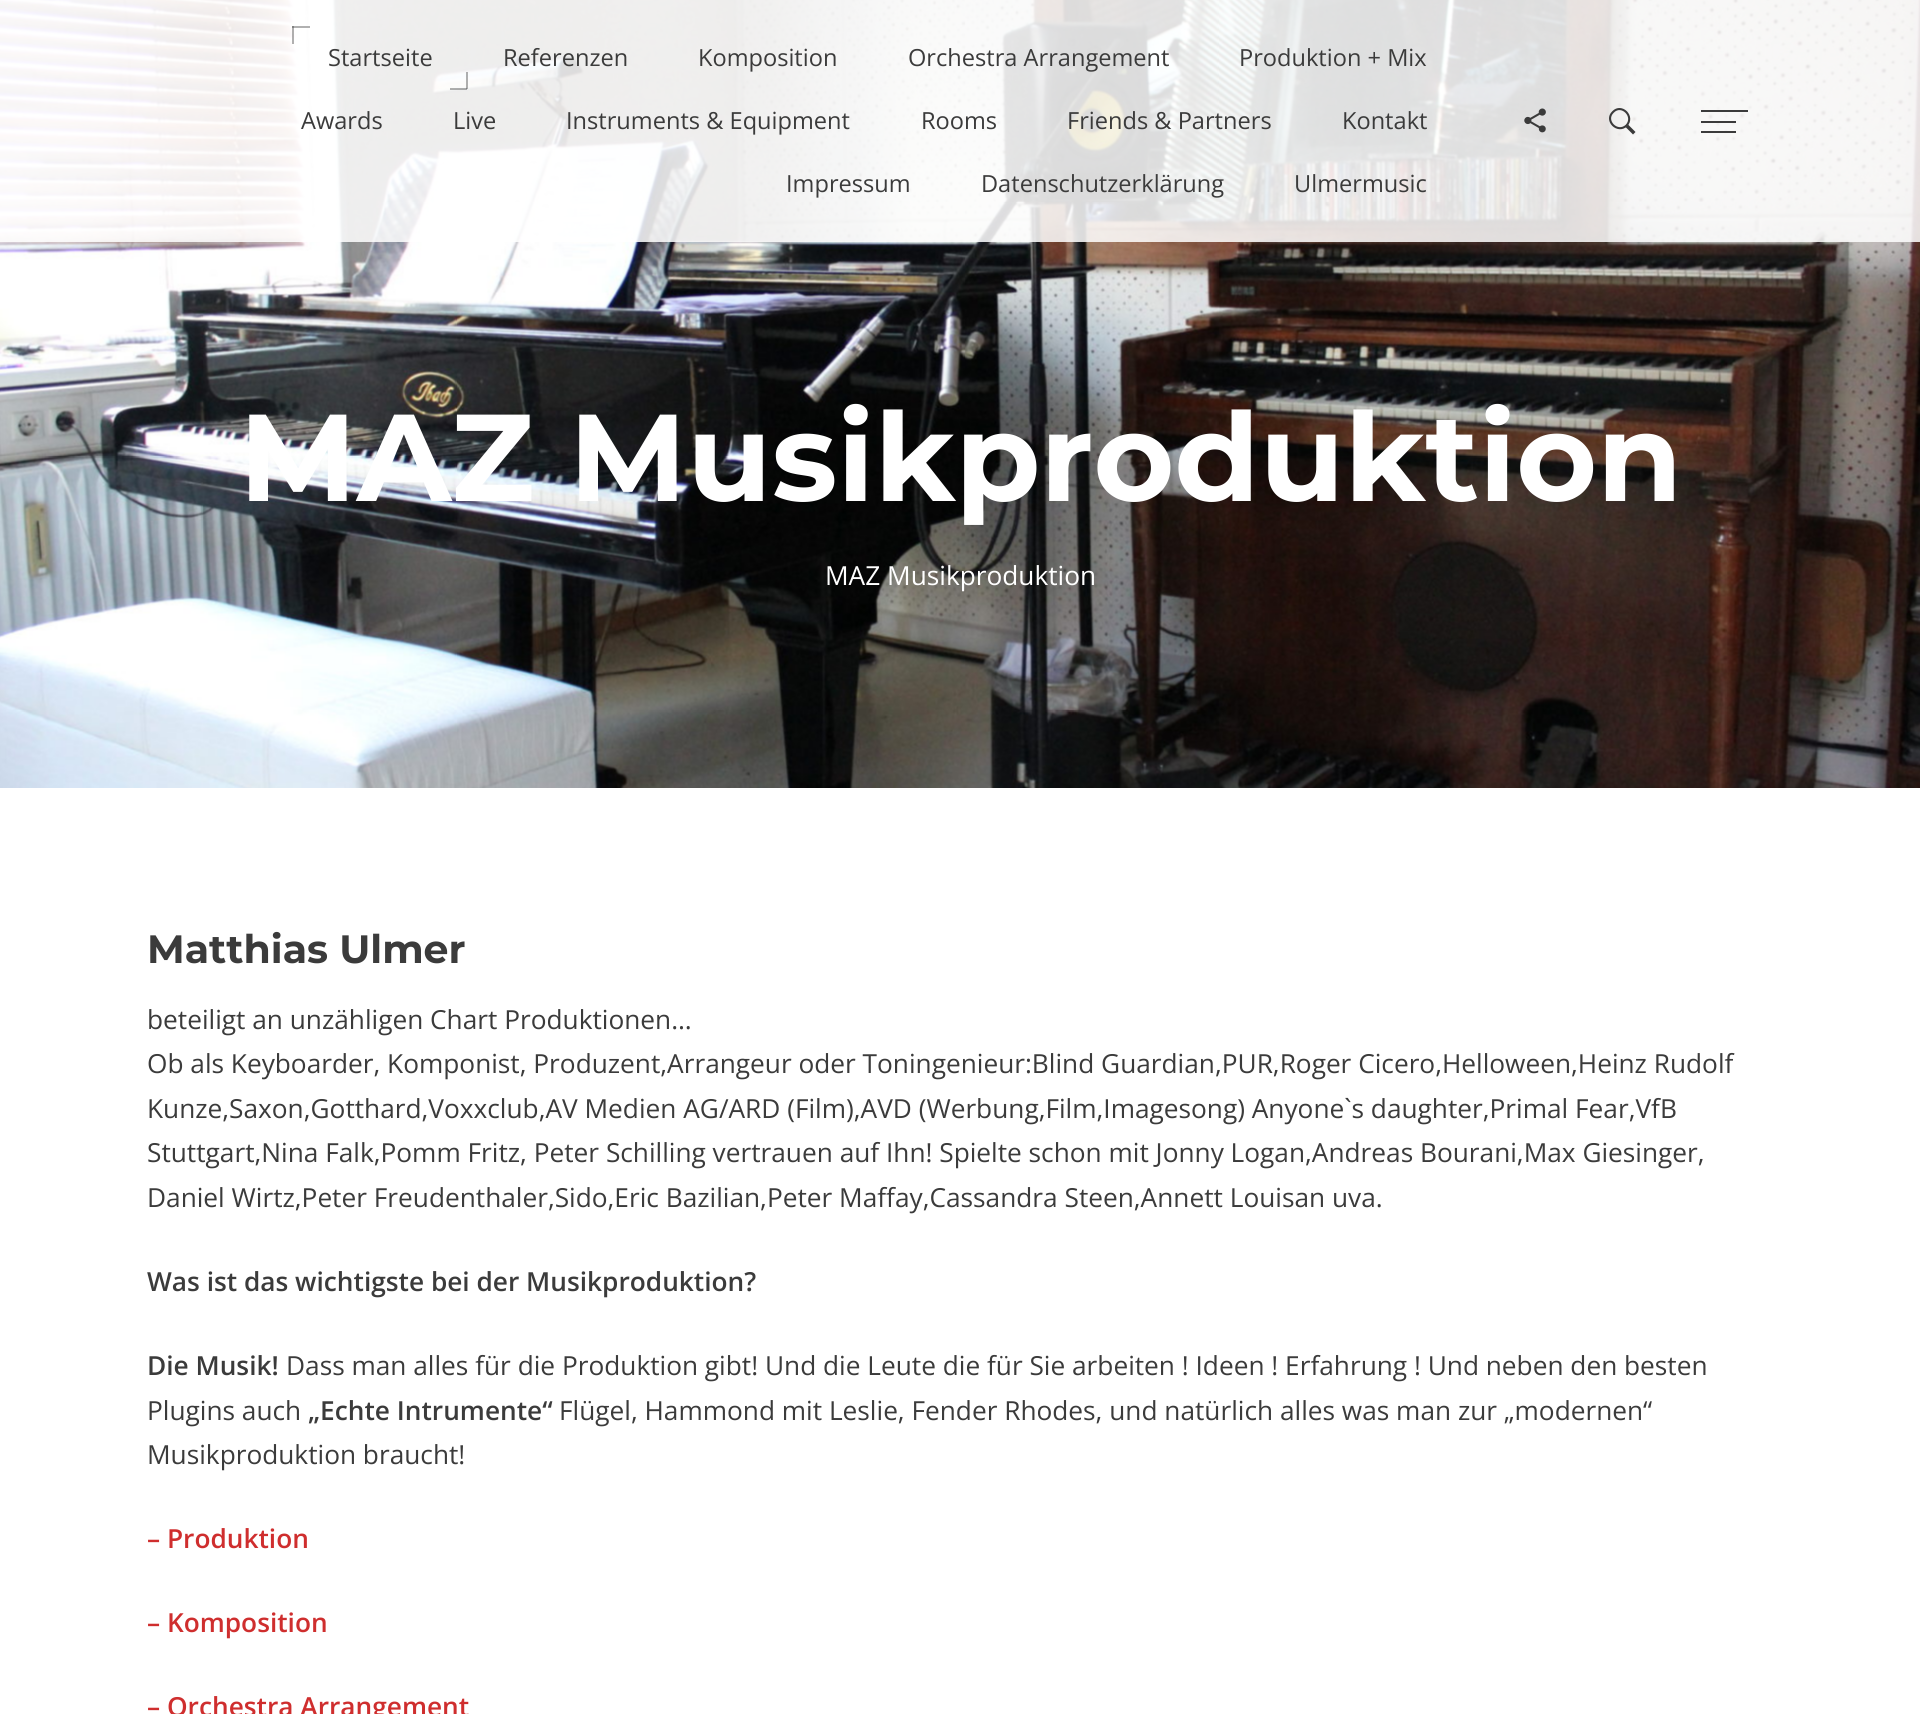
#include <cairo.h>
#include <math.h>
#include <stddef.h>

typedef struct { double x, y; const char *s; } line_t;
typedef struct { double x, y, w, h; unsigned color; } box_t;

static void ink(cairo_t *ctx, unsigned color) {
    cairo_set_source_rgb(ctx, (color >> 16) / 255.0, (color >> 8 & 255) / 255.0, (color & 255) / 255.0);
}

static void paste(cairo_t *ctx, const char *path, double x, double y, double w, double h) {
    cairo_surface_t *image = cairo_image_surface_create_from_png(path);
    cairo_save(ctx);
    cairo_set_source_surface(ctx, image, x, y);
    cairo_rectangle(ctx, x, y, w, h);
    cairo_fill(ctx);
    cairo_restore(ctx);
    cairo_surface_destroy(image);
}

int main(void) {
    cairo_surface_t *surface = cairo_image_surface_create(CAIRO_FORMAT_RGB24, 1920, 1714);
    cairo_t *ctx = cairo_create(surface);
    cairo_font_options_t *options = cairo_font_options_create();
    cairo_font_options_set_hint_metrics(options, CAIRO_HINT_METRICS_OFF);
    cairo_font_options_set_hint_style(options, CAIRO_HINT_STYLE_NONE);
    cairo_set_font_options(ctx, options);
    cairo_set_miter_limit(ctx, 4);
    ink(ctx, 0xFFFFFF);
    cairo_paint(ctx);
    paste(ctx, "media/2.png", 0, 0, 1920, 788);
    cairo_set_source_rgba(ctx, 1, 1, 1, 0.85);
    cairo_rectangle(ctx, 0, 0, 1920, 242);
    cairo_fill(ctx);
    ink(ctx, 0xB0B0B0);
    cairo_rectangle(ctx, 292, 26, 18, 2);
    cairo_fill(ctx);
    cairo_set_source_rgba(ctx, 0.231, 0.231, 0.231, 0.4);
    cairo_rectangle(ctx, 292, 26, 2, 18);
    cairo_fill(ctx);
    cairo_select_font_face(ctx, "Open Sans", CAIRO_FONT_SLANT_NORMAL, CAIRO_FONT_WEIGHT_NORMAL);
    cairo_set_font_size(ctx, 23.6);
    ink(ctx, 0x3B3B3B);
    cairo_move_to(ctx, 328, 66);
    cairo_show_text(ctx, "Startseite");
    cairo_set_source_rgba(ctx, 0.231, 0.231, 0.231, 0.4);
    cairo_rectangle(ctx, 466, 72, 2, 17);
    cairo_fill(ctx);
    cairo_rectangle(ctx, 450, 88, 17, 2);
    cairo_fill(ctx);
    ink(ctx, 0x3B3B3B);
    {
        static const line_t items[] = {
            {503, 66, "Referenzen"},
            {698, 66, "Komposition"},
            {908, 66, "Orchestra Arrangement"},
            {1239, 66, "Produktion + Mix"},
            {301, 129, "Awards"},
            {453, 129, "Live"},
            {566, 129, "Instruments & Equipment"},
            {921, 129, "Rooms"},
            {1067, 129, "Friends & Partners"},
            {1342, 129, "Kontakt"},
            {786, 192, "Impressum"},
            {981, 192, "Datenschutzerklärung"},
            {1294, 192, "Ulmermusic"},
        };
        for (size_t i = 0; i < sizeof items / sizeof *items; i++) {
            cairo_move_to(ctx, items[i].x, items[i].y);
            cairo_show_text(ctx, items[i].s);
        }
    }
    paste(ctx, "media/1.png", 1524, 108, 22, 25);
    cairo_new_path(ctx);
    cairo_move_to(ctx, 1613, 112);
    cairo_curve_to(ctx, 1621.5, 103, 1635, 116.5, 1626.5, 125.5);
    cairo_curve_to(ctx, 1617.5, 134, 1604, 120.5, 1613, 112);
    cairo_close_path(ctx);
    cairo_set_line_width(ctx, 2.1);
    cairo_stroke(ctx);
    cairo_new_path(ctx);
    cairo_move_to(ctx, 1625.5, 127);
    cairo_line_to(ctx, 1628, 124.5);
    cairo_line_to(ctx, 1635.5, 132);
    cairo_line_to(ctx, 1633, 134.5);
    cairo_close_path(ctx);
    cairo_fill(ctx);
    {
        static const box_t items[] = {
            {1701, 110, 47, 2, 0x3B3B3B},
            {1701, 121, 35, 2, 0x3B3B3B},
            {1701, 131, 35, 2, 0x3B3B3B},
        };
        for (size_t i = 0; i < sizeof items / sizeof *items; i++) {
            ink(ctx, items[i].color);
            cairo_rectangle(ctx, items[i].x, items[i].y, items[i].w, items[i].h);
            cairo_fill(ctx);
        }
    }
    cairo_select_font_face(ctx, "Montserrat", CAIRO_FONT_SLANT_NORMAL, CAIRO_FONT_WEIGHT_BOLD);
    cairo_set_font_size(ctx, 123.4);
    ink(ctx, 0xFFFFFF);
    cairo_move_to(ctx, 239, 501);
    cairo_show_text(ctx, "MAZ Musikproduktion");
    cairo_select_font_face(ctx, "Open Sans", CAIRO_FONT_SLANT_NORMAL, CAIRO_FONT_WEIGHT_NORMAL);
    cairo_set_font_size(ctx, 26.25);
    cairo_move_to(ctx, 825, 585);
    cairo_show_text(ctx, "MAZ Musikproduktion");
    cairo_select_font_face(ctx, "Montserrat", CAIRO_FONT_SLANT_NORMAL, CAIRO_FONT_WEIGHT_BOLD);
    cairo_set_font_size(ctx, 39.5);
    ink(ctx, 0x3B3B3B);
    cairo_move_to(ctx, 147, 963);
    cairo_show_text(ctx, "Matthias Ulmer");
    cairo_select_font_face(ctx, "Open Sans", CAIRO_FONT_SLANT_NORMAL, CAIRO_FONT_WEIGHT_NORMAL);
    cairo_set_font_size(ctx, 26.25);
    {
        static const line_t items[] = {
            {147, 1029, "beteiligt an unzähligen Chart Produktionen…"},
            {147, 1073, "Ob als Keyboarder, Komponist, Produzent,Arrangeur oder Toningenieur:Blind Guardian,PUR,Roger Cicero,Helloween,Heinz Rudolf"},
            {147, 1118, "Kunze,Saxon,Gotthard,Voxxclub,AV Medien AG/ARD (Film),AVD (Werbung,Film,Imagesong) Anyone`s daughter,Primal Fear,VfB"},
            {147, 1162, "Stuttgart,Nina Falk,Pomm Fritz, Peter Schilling vertrauen auf Ihn! Spielte schon mit Jonny Logan,Andreas Bourani,Max Giesinger,"},
            {147, 1207, "Daniel Wirtz,Peter Freudenthaler,Sido,Eric Bazilian,Peter Maffay,Cassandra Steen,Annett Louisan uva."},
        };
        for (size_t i = 0; i < sizeof items / sizeof *items; i++) {
            cairo_move_to(ctx, items[i].x, items[i].y);
            cairo_show_text(ctx, items[i].s);
        }
    }
    cairo_select_font_face(ctx, "Open Sans SemiBold", CAIRO_FONT_SLANT_NORMAL, CAIRO_FONT_WEIGHT_NORMAL);
    cairo_move_to(ctx, 147, 1291);
    cairo_show_text(ctx, "Was ist das wichtigste bei der Musikproduktion?");
    cairo_move_to(ctx, 147, 1375);
    cairo_show_text(ctx, "Die Musik!");
    cairo_select_font_face(ctx, "Open Sans", CAIRO_FONT_SLANT_NORMAL, CAIRO_FONT_WEIGHT_NORMAL);
    cairo_move_to(ctx, 286, 1375);
    cairo_show_text(ctx, "Dass man alles für die Produktion gibt! Und die Leute die für Sie arbeiten ! Ideen ! Erfahrung ! Und neben den besten");
    cairo_move_to(ctx, 147, 1420);
    cairo_show_text(ctx, "Plugins auch");
    cairo_select_font_face(ctx, "Open Sans SemiBold", CAIRO_FONT_SLANT_NORMAL, CAIRO_FONT_WEIGHT_NORMAL);
    cairo_move_to(ctx, 308, 1420);
    cairo_show_text(ctx, "„Echte Intrumente“");
    cairo_select_font_face(ctx, "Open Sans", CAIRO_FONT_SLANT_NORMAL, CAIRO_FONT_WEIGHT_NORMAL);
    cairo_move_to(ctx, 559, 1420);
    cairo_show_text(ctx, "Flügel, Hammond mit Leslie, Fender Rhodes, und natürlich alles was man zur „modernen“");
    cairo_move_to(ctx, 147, 1464);
    cairo_show_text(ctx, "Musikproduktion braucht!");
    cairo_select_font_face(ctx, "Open Sans SemiBold", CAIRO_FONT_SLANT_NORMAL, CAIRO_FONT_WEIGHT_NORMAL);
    ink(ctx, 0xCF2E2E);
    {
        static const line_t items[] = {
            {147, 1548, "– Produktion"},
            {147, 1632, "– Komposition"},
            {147, 1716, "– Orchestra Arrangement"},
        };
        for (size_t i = 0; i < sizeof items / sizeof *items; i++) {
            cairo_move_to(ctx, items[i].x, items[i].y);
            cairo_show_text(ctx, items[i].s);
        }
    }
    cairo_surface_write_to_png(surface, "image.png");
    cairo_font_options_destroy(options);
    cairo_destroy(ctx);
    cairo_surface_destroy(surface);
    return 0;
}
